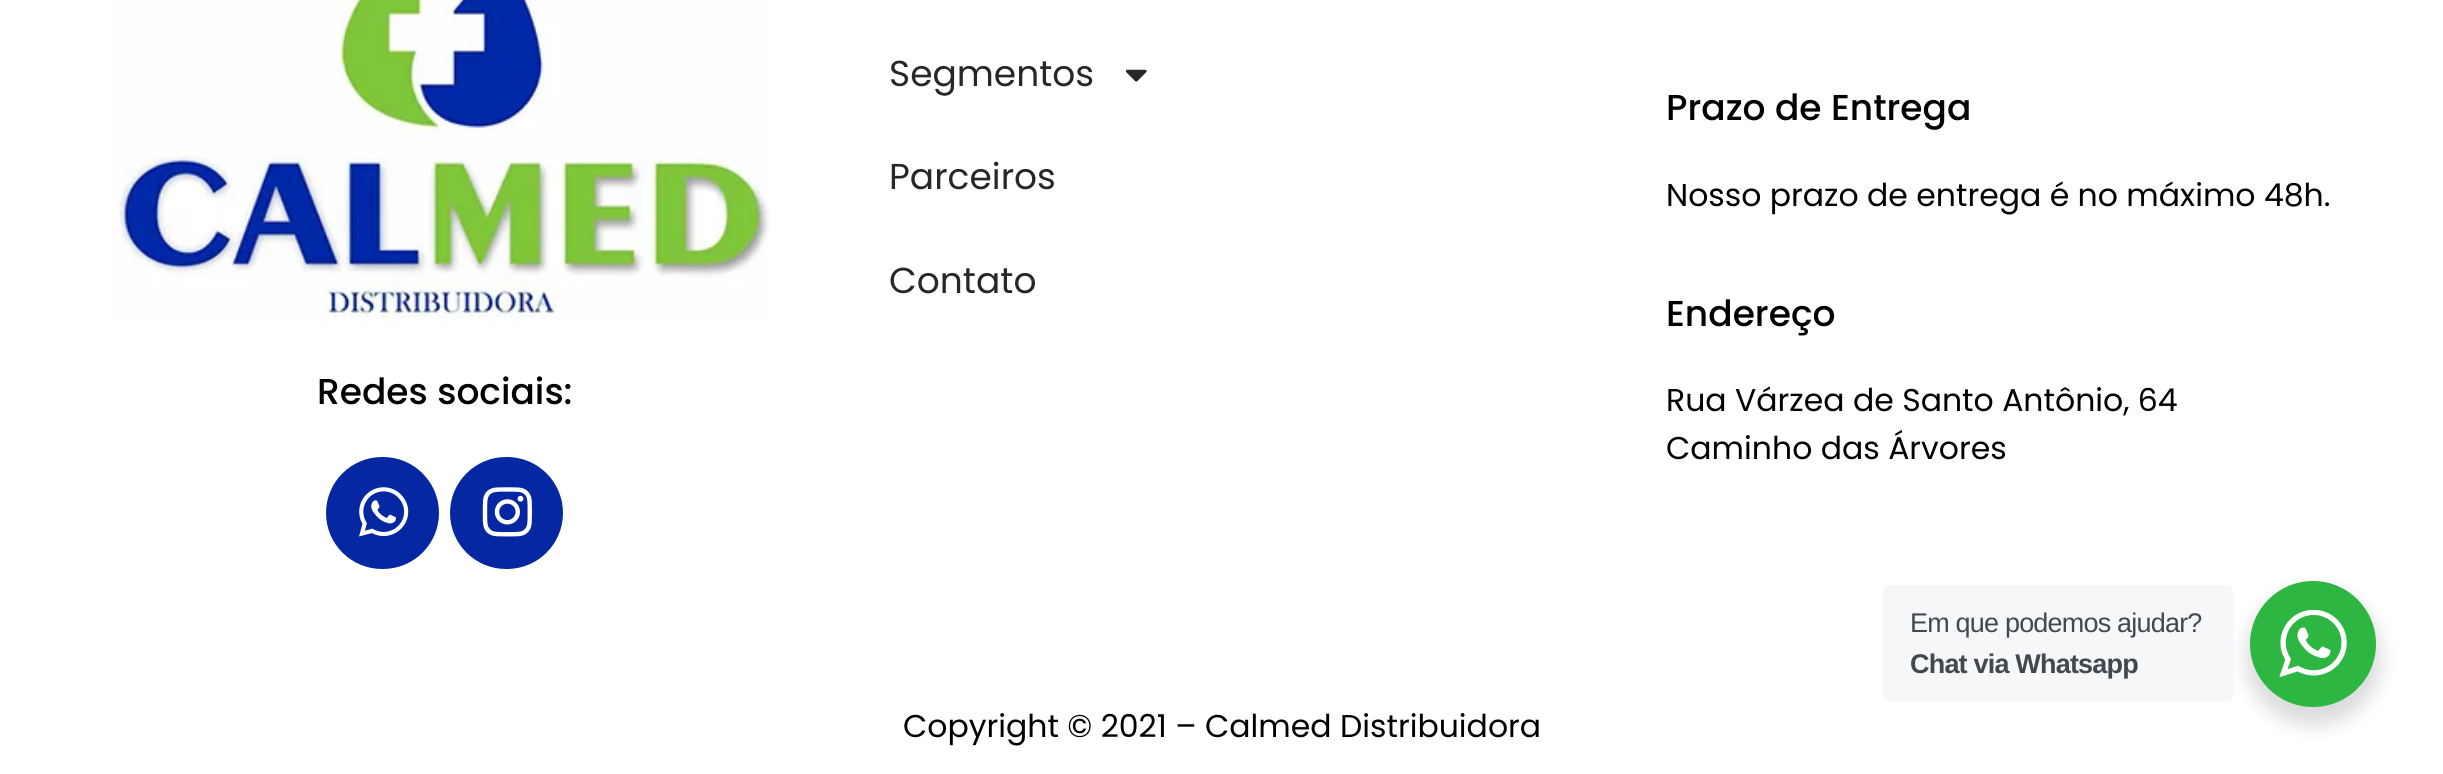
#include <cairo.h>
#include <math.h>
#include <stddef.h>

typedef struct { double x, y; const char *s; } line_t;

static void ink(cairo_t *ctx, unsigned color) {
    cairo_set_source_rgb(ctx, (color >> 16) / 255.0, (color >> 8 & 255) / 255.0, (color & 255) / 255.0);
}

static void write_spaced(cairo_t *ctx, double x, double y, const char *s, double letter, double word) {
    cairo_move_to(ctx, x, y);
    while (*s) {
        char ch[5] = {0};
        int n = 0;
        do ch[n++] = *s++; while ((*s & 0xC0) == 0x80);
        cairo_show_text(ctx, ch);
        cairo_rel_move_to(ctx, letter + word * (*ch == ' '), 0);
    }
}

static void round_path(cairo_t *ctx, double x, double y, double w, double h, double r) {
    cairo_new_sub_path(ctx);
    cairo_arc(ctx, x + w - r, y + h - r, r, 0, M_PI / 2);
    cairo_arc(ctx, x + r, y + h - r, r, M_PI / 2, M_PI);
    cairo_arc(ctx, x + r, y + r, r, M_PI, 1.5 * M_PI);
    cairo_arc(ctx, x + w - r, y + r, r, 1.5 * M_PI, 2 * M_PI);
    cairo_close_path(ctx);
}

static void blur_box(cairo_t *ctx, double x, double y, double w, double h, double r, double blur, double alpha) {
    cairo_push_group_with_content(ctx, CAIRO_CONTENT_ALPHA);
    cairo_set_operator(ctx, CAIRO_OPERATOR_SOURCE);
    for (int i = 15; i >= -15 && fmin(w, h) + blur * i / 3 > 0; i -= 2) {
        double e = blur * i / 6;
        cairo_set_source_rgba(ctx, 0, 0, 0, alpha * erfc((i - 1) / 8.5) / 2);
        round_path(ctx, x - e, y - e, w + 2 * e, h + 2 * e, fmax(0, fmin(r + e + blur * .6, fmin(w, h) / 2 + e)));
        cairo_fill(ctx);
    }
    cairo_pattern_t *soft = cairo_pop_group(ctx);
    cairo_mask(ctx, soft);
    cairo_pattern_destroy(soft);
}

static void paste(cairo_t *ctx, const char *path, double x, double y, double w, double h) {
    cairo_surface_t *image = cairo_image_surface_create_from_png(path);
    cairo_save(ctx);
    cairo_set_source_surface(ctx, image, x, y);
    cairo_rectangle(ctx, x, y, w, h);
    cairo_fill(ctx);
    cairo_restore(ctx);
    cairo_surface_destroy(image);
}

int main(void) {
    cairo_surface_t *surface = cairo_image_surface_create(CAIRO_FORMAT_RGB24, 2443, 774);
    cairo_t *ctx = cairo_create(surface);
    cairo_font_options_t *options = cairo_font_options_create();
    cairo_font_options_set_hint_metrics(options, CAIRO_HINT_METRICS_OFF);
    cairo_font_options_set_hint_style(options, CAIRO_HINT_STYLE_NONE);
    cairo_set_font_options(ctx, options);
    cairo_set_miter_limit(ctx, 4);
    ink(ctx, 0xFFFFFF);
    cairo_paint(ctx);
    paste(ctx, "media/1.png", 112, 0, 658, 324);
    cairo_select_font_face(ctx, "Poppins Medium", CAIRO_FONT_SLANT_NORMAL, CAIRO_FONT_WEIGHT_NORMAL);
    cairo_set_font_size(ctx, 36);
    ink(ctx, 0x000000);
    cairo_move_to(ctx, 317, 404);
    cairo_show_text(ctx, "Redes sociais:");
    ink(ctx, 0x0528A2);
    round_path(ctx, 326, 457, 113, 112, 56);
    cairo_fill(ctx);
    paste(ctx, "media/2.png", 359, 487, 50, 50);
    round_path(ctx, 450, 457, 113, 112, 56);
    cairo_fill(ctx);
    paste(ctx, "media/3.png", 482, 487, 50, 50);
    cairo_select_font_face(ctx, "Poppins", CAIRO_FONT_SLANT_NORMAL, CAIRO_FONT_WEIGHT_NORMAL);
    ink(ctx, 0x272727);
    cairo_move_to(ctx, 889, 86);
    cairo_show_text(ctx, "Segmentos");
    paste(ctx, "media/4.png", 1125, 69, 22, 13);
    cairo_move_to(ctx, 889, 189);
    cairo_show_text(ctx, "Parceiros");
    cairo_move_to(ctx, 889, 293);
    cairo_show_text(ctx, "Contato");
    cairo_select_font_face(ctx, "Poppins Medium", CAIRO_FONT_SLANT_NORMAL, CAIRO_FONT_WEIGHT_NORMAL);
    ink(ctx, 0x000000);
    cairo_move_to(ctx, 1666, 120);
    cairo_show_text(ctx, "Prazo de Entrega");
    cairo_select_font_face(ctx, "Poppins", CAIRO_FONT_SLANT_NORMAL, CAIRO_FONT_WEIGHT_NORMAL);
    cairo_set_font_size(ctx, 31.5);
    cairo_move_to(ctx, 1666, 206);
    cairo_show_text(ctx, "Nosso prazo de entrega é no máximo 48h.");
    cairo_select_font_face(ctx, "Poppins Medium", CAIRO_FONT_SLANT_NORMAL, CAIRO_FONT_WEIGHT_NORMAL);
    cairo_set_font_size(ctx, 36);
    cairo_move_to(ctx, 1666, 326);
    cairo_show_text(ctx, "Endereço");
    cairo_select_font_face(ctx, "Poppins", CAIRO_FONT_SLANT_NORMAL, CAIRO_FONT_WEIGHT_NORMAL);
    cairo_set_font_size(ctx, 31.5);
    {
        static const line_t items[] = {
            {1666, 411, "Rua Várzea de Santo Antônio, 64"},
            {1666, 459, "Caminho das Árvores"},
            {903, 737, "Copyright © 2021 – Calmed Distribuidora"},
        };
        for (size_t i = 0; i < sizeof items / sizeof *items; i++) {
            cairo_move_to(ctx, items[i].x, items[i].y);
            cairo_show_text(ctx, items[i].s);
        }
    }
    ink(ctx, 0x000000);
    blur_box(ctx, 2246, 590, 135, 135, 67.5, 9, 0.14);
    ink(ctx, 0xF5F7F9);
    round_path(ctx, 1883, 585, 351, 117, 9);
    cairo_fill(ctx);
    cairo_select_font_face(ctx, "Liberation Sans", CAIRO_FONT_SLANT_NORMAL, CAIRO_FONT_WEIGHT_NORMAL);
    cairo_set_font_size(ctx, 27);
    ink(ctx, 0x43474E);
    write_spaced(ctx, 1910, 632, "Em que podemos ajudar?", -0.8, 0);
    cairo_select_font_face(ctx, "Liberation Sans", CAIRO_FONT_SLANT_NORMAL, CAIRO_FONT_WEIGHT_BOLD);
    write_spaced(ctx, 1910, 673, "Chat via Whatsapp", -0.8, 0);
    ink(ctx, 0x2DB742);
    cairo_new_path(ctx);
    cairo_arc(ctx, 2313, 644, 63, 0, 2 * M_PI);
    cairo_fill(ctx);
    paste(ctx, "media/5.png", 2279, 610, 68, 67);
    cairo_surface_write_to_png(surface, "image.png");
    cairo_font_options_destroy(options);
    cairo_destroy(ctx);
    cairo_surface_destroy(surface);
    return 0;
}
